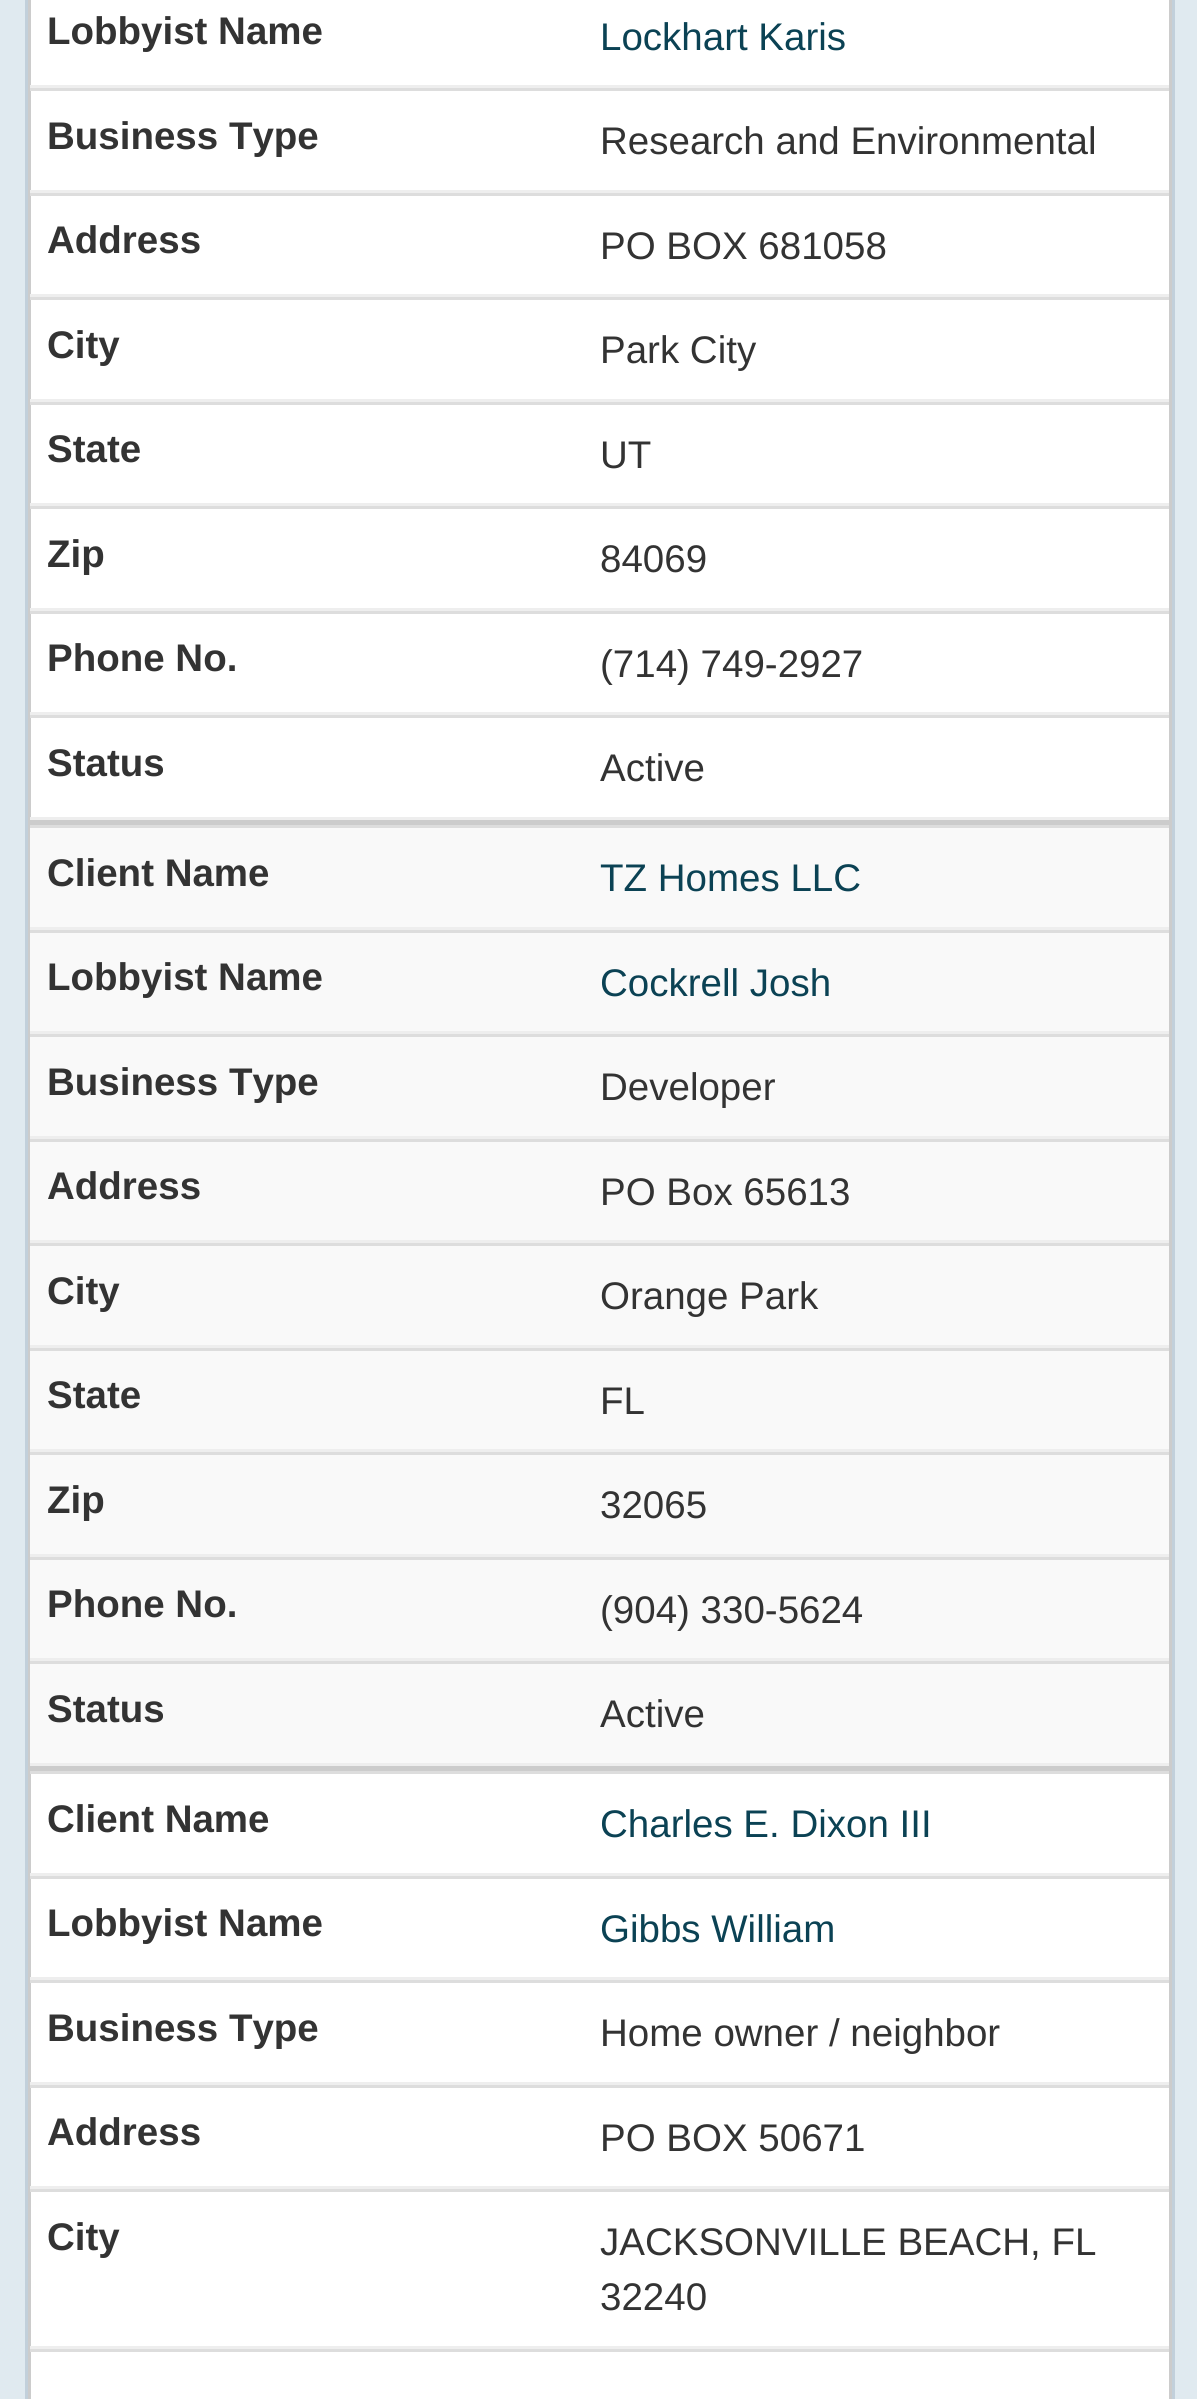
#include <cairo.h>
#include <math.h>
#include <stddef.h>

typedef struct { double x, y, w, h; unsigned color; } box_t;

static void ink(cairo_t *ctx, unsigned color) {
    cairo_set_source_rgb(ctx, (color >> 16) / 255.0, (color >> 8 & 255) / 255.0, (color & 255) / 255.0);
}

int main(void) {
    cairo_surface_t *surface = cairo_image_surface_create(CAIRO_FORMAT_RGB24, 1197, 2399);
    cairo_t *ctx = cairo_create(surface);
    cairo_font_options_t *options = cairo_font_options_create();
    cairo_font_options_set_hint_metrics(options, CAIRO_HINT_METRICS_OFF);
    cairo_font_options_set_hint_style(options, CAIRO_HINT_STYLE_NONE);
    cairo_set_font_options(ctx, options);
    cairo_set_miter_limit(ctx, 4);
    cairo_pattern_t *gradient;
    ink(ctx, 0xE0EAF0);
    cairo_paint(ctx);
    gradient = cairo_pattern_create_linear(599, -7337, 600, 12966);
    cairo_pattern_add_color_stop_rgba(gradient, 0, 0.506, 0.71, 0.839, 1);
    cairo_pattern_add_color_stop_rgba(gradient, 0.01, 1, 1, 1, 1);
    cairo_set_source(ctx, gradient);
    cairo_pattern_destroy(gradient);
    cairo_rectangle(ctx, 31, 0, 1138, 2399);
    cairo_fill(ctx);
    ink(ctx, 0xC2D0DB);
    cairo_rectangle(ctx, 1172, 0, 3, 2399);
    cairo_fill(ctx);
    cairo_rectangle(ctx, 25, 0, 3, 2399);
    cairo_fill(ctx);
    cairo_rectangle(ctx, 29.5, -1.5, 1141, 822);
    ink(ctx, 0xCCCCCC);
    cairo_set_line_width(ctx, 3);
    cairo_stroke(ctx);
    ink(ctx, 0xEEEEEE);
    cairo_rectangle(ctx, 30, 85, 1139, 3);
    cairo_fill(ctx);
    cairo_select_font_face(ctx, "Liberation Sans", CAIRO_FONT_SLANT_NORMAL, CAIRO_FONT_WEIGHT_BOLD);
    cairo_set_font_size(ctx, 38.5);
    ink(ctx, 0x333333);
    cairo_move_to(ctx, 47, 44);
    cairo_show_text(ctx, "Lobbyist Name");
    cairo_select_font_face(ctx, "Liberation Sans", CAIRO_FONT_SLANT_NORMAL, CAIRO_FONT_WEIGHT_NORMAL);
    ink(ctx, 0x0B4254);
    cairo_move_to(ctx, 600, 50);
    cairo_show_text(ctx, "Lockhart Karis");
    ink(ctx, 0xDDDDDD);
    cairo_rectangle(ctx, 30, 88, 1139, 3);
    cairo_fill(ctx);
    ink(ctx, 0xEEEEEE);
    cairo_rectangle(ctx, 30, 190, 1139, 3);
    cairo_fill(ctx);
    cairo_select_font_face(ctx, "Liberation Sans", CAIRO_FONT_SLANT_NORMAL, CAIRO_FONT_WEIGHT_BOLD);
    ink(ctx, 0x333333);
    cairo_move_to(ctx, 47, 149);
    cairo_show_text(ctx, "Business Type");
    cairo_select_font_face(ctx, "Liberation Sans", CAIRO_FONT_SLANT_NORMAL, CAIRO_FONT_WEIGHT_NORMAL);
    cairo_move_to(ctx, 600, 154);
    cairo_show_text(ctx, "Research and Environmental");
    ink(ctx, 0xDDDDDD);
    cairo_rectangle(ctx, 30, 193, 1139, 3);
    cairo_fill(ctx);
    ink(ctx, 0xEEEEEE);
    cairo_rectangle(ctx, 30, 294, 1139, 3);
    cairo_fill(ctx);
    cairo_select_font_face(ctx, "Liberation Sans", CAIRO_FONT_SLANT_NORMAL, CAIRO_FONT_WEIGHT_BOLD);
    ink(ctx, 0x333333);
    cairo_move_to(ctx, 47, 253);
    cairo_show_text(ctx, "Address");
    cairo_select_font_face(ctx, "Liberation Sans", CAIRO_FONT_SLANT_NORMAL, CAIRO_FONT_WEIGHT_NORMAL);
    cairo_move_to(ctx, 600, 259);
    cairo_show_text(ctx, "PO BOX 681058");
    ink(ctx, 0xDDDDDD);
    cairo_rectangle(ctx, 30, 297, 1139, 3);
    cairo_fill(ctx);
    ink(ctx, 0xEEEEEE);
    cairo_rectangle(ctx, 30, 399, 1139, 3);
    cairo_fill(ctx);
    cairo_select_font_face(ctx, "Liberation Sans", CAIRO_FONT_SLANT_NORMAL, CAIRO_FONT_WEIGHT_BOLD);
    ink(ctx, 0x333333);
    cairo_move_to(ctx, 47, 358);
    cairo_show_text(ctx, "City");
    cairo_select_font_face(ctx, "Liberation Sans", CAIRO_FONT_SLANT_NORMAL, CAIRO_FONT_WEIGHT_NORMAL);
    cairo_move_to(ctx, 600, 363);
    cairo_show_text(ctx, "Park City");
    ink(ctx, 0xDDDDDD);
    cairo_rectangle(ctx, 30, 402, 1139, 3);
    cairo_fill(ctx);
    ink(ctx, 0xEEEEEE);
    cairo_rectangle(ctx, 30, 503, 1139, 3);
    cairo_fill(ctx);
    cairo_select_font_face(ctx, "Liberation Sans", CAIRO_FONT_SLANT_NORMAL, CAIRO_FONT_WEIGHT_BOLD);
    ink(ctx, 0x333333);
    cairo_move_to(ctx, 47, 462);
    cairo_show_text(ctx, "State");
    cairo_select_font_face(ctx, "Liberation Sans", CAIRO_FONT_SLANT_NORMAL, CAIRO_FONT_WEIGHT_NORMAL);
    cairo_move_to(ctx, 600, 468);
    cairo_show_text(ctx, "UT");
    ink(ctx, 0xDDDDDD);
    cairo_rectangle(ctx, 30, 506, 1139, 3);
    cairo_fill(ctx);
    ink(ctx, 0xEEEEEE);
    cairo_rectangle(ctx, 30, 608, 1139, 3);
    cairo_fill(ctx);
    cairo_select_font_face(ctx, "Liberation Sans", CAIRO_FONT_SLANT_NORMAL, CAIRO_FONT_WEIGHT_BOLD);
    ink(ctx, 0x333333);
    cairo_move_to(ctx, 47, 567);
    cairo_show_text(ctx, "Zip");
    cairo_select_font_face(ctx, "Liberation Sans", CAIRO_FONT_SLANT_NORMAL, CAIRO_FONT_WEIGHT_NORMAL);
    cairo_move_to(ctx, 600, 572);
    cairo_show_text(ctx, "84069");
    ink(ctx, 0xDDDDDD);
    cairo_rectangle(ctx, 30, 611, 1139, 3);
    cairo_fill(ctx);
    ink(ctx, 0xEEEEEE);
    cairo_rectangle(ctx, 30, 712, 1139, 3);
    cairo_fill(ctx);
    cairo_select_font_face(ctx, "Liberation Sans", CAIRO_FONT_SLANT_NORMAL, CAIRO_FONT_WEIGHT_BOLD);
    ink(ctx, 0x333333);
    cairo_move_to(ctx, 47, 671);
    cairo_show_text(ctx, "Phone No.");
    cairo_select_font_face(ctx, "Liberation Sans", CAIRO_FONT_SLANT_NORMAL, CAIRO_FONT_WEIGHT_NORMAL);
    cairo_move_to(ctx, 600, 677);
    cairo_show_text(ctx, "(714) 749-2927");
    ink(ctx, 0xDDDDDD);
    cairo_rectangle(ctx, 30, 715, 1139, 3);
    cairo_fill(ctx);
    ink(ctx, 0xEEEEEE);
    cairo_rectangle(ctx, 30, 817, 1139, 3);
    cairo_fill(ctx);
    cairo_select_font_face(ctx, "Liberation Sans", CAIRO_FONT_SLANT_NORMAL, CAIRO_FONT_WEIGHT_BOLD);
    ink(ctx, 0x333333);
    cairo_move_to(ctx, 47, 776);
    cairo_show_text(ctx, "Status");
    cairo_select_font_face(ctx, "Liberation Sans", CAIRO_FONT_SLANT_NORMAL, CAIRO_FONT_WEIGHT_NORMAL);
    cairo_move_to(ctx, 600, 781);
    cairo_show_text(ctx, "Active");
    cairo_rectangle(ctx, 29.5, 823.5, 1141, 943);
    ink(ctx, 0xCCCCCC);
    cairo_stroke(ctx);
    {
        static const box_t items[] = {
            {30, 828, 1139, 99, 0xF9F9F9},
            {30, 825, 1139, 3, 0xDDDDDD},
            {30, 927, 1139, 3, 0xEEEEEE},
        };
        for (size_t i = 0; i < sizeof items / sizeof *items; i++) {
            ink(ctx, items[i].color);
            cairo_rectangle(ctx, items[i].x, items[i].y, items[i].w, items[i].h);
            cairo_fill(ctx);
        }
    }
    cairo_select_font_face(ctx, "Liberation Sans", CAIRO_FONT_SLANT_NORMAL, CAIRO_FONT_WEIGHT_BOLD);
    ink(ctx, 0x333333);
    cairo_move_to(ctx, 47, 886);
    cairo_show_text(ctx, "Client Name");
    cairo_select_font_face(ctx, "Liberation Sans", CAIRO_FONT_SLANT_NORMAL, CAIRO_FONT_WEIGHT_NORMAL);
    ink(ctx, 0x0B4254);
    cairo_move_to(ctx, 600, 891);
    cairo_show_text(ctx, "TZ Homes LLC");
    {
        static const box_t items[] = {
            {30, 933, 1139, 98, 0xF9F9F9},
            {30, 930, 1139, 3, 0xDDDDDD},
            {30, 1031, 1139, 3, 0xEEEEEE},
        };
        for (size_t i = 0; i < sizeof items / sizeof *items; i++) {
            ink(ctx, items[i].color);
            cairo_rectangle(ctx, items[i].x, items[i].y, items[i].w, items[i].h);
            cairo_fill(ctx);
        }
    }
    cairo_select_font_face(ctx, "Liberation Sans", CAIRO_FONT_SLANT_NORMAL, CAIRO_FONT_WEIGHT_BOLD);
    ink(ctx, 0x333333);
    cairo_move_to(ctx, 47, 990);
    cairo_show_text(ctx, "Lobbyist Name");
    cairo_select_font_face(ctx, "Liberation Sans", CAIRO_FONT_SLANT_NORMAL, CAIRO_FONT_WEIGHT_NORMAL);
    ink(ctx, 0x0B4254);
    cairo_move_to(ctx, 600, 996);
    cairo_show_text(ctx, "Cockrell Josh");
    {
        static const box_t items[] = {
            {30, 1037, 1139, 99, 0xF9F9F9},
            {30, 1034, 1139, 3, 0xDDDDDD},
            {30, 1136, 1139, 3, 0xEEEEEE},
        };
        for (size_t i = 0; i < sizeof items / sizeof *items; i++) {
            ink(ctx, items[i].color);
            cairo_rectangle(ctx, items[i].x, items[i].y, items[i].w, items[i].h);
            cairo_fill(ctx);
        }
    }
    cairo_select_font_face(ctx, "Liberation Sans", CAIRO_FONT_SLANT_NORMAL, CAIRO_FONT_WEIGHT_BOLD);
    ink(ctx, 0x333333);
    cairo_move_to(ctx, 47, 1095);
    cairo_show_text(ctx, "Business Type");
    cairo_select_font_face(ctx, "Liberation Sans", CAIRO_FONT_SLANT_NORMAL, CAIRO_FONT_WEIGHT_NORMAL);
    cairo_move_to(ctx, 600, 1100);
    cairo_show_text(ctx, "Developer");
    {
        static const box_t items[] = {
            {30, 1142, 1139, 98, 0xF9F9F9},
            {30, 1139, 1139, 3, 0xDDDDDD},
            {30, 1240, 1139, 3, 0xEEEEEE},
        };
        for (size_t i = 0; i < sizeof items / sizeof *items; i++) {
            ink(ctx, items[i].color);
            cairo_rectangle(ctx, items[i].x, items[i].y, items[i].w, items[i].h);
            cairo_fill(ctx);
        }
    }
    cairo_select_font_face(ctx, "Liberation Sans", CAIRO_FONT_SLANT_NORMAL, CAIRO_FONT_WEIGHT_BOLD);
    ink(ctx, 0x333333);
    cairo_move_to(ctx, 47, 1199);
    cairo_show_text(ctx, "Address");
    cairo_select_font_face(ctx, "Liberation Sans", CAIRO_FONT_SLANT_NORMAL, CAIRO_FONT_WEIGHT_NORMAL);
    cairo_move_to(ctx, 600, 1205);
    cairo_show_text(ctx, "PO Box 65613");
    {
        static const box_t items[] = {
            {30, 1246, 1139, 99, 0xF9F9F9},
            {30, 1243, 1139, 3, 0xDDDDDD},
            {30, 1345, 1139, 3, 0xEEEEEE},
        };
        for (size_t i = 0; i < sizeof items / sizeof *items; i++) {
            ink(ctx, items[i].color);
            cairo_rectangle(ctx, items[i].x, items[i].y, items[i].w, items[i].h);
            cairo_fill(ctx);
        }
    }
    cairo_select_font_face(ctx, "Liberation Sans", CAIRO_FONT_SLANT_NORMAL, CAIRO_FONT_WEIGHT_BOLD);
    ink(ctx, 0x333333);
    cairo_move_to(ctx, 47, 1304);
    cairo_show_text(ctx, "City");
    cairo_select_font_face(ctx, "Liberation Sans", CAIRO_FONT_SLANT_NORMAL, CAIRO_FONT_WEIGHT_NORMAL);
    cairo_move_to(ctx, 600, 1309);
    cairo_show_text(ctx, "Orange Park");
    {
        static const box_t items[] = {
            {30, 1351, 1139, 98, 0xF9F9F9},
            {30, 1348, 1139, 3, 0xDDDDDD},
            {30, 1449, 1139, 3, 0xEEEEEE},
        };
        for (size_t i = 0; i < sizeof items / sizeof *items; i++) {
            ink(ctx, items[i].color);
            cairo_rectangle(ctx, items[i].x, items[i].y, items[i].w, items[i].h);
            cairo_fill(ctx);
        }
    }
    cairo_select_font_face(ctx, "Liberation Sans", CAIRO_FONT_SLANT_NORMAL, CAIRO_FONT_WEIGHT_BOLD);
    ink(ctx, 0x333333);
    cairo_move_to(ctx, 47, 1408);
    cairo_show_text(ctx, "State");
    cairo_select_font_face(ctx, "Liberation Sans", CAIRO_FONT_SLANT_NORMAL, CAIRO_FONT_WEIGHT_NORMAL);
    cairo_move_to(ctx, 600, 1414);
    cairo_show_text(ctx, "FL");
    {
        static const box_t items[] = {
            {30, 1455, 1139, 99, 0xF9F9F9},
            {30, 1452, 1139, 3, 0xDDDDDD},
            {30, 1554, 1139, 3, 0xEEEEEE},
        };
        for (size_t i = 0; i < sizeof items / sizeof *items; i++) {
            ink(ctx, items[i].color);
            cairo_rectangle(ctx, items[i].x, items[i].y, items[i].w, items[i].h);
            cairo_fill(ctx);
        }
    }
    cairo_select_font_face(ctx, "Liberation Sans", CAIRO_FONT_SLANT_NORMAL, CAIRO_FONT_WEIGHT_BOLD);
    ink(ctx, 0x333333);
    cairo_move_to(ctx, 47, 1513);
    cairo_show_text(ctx, "Zip");
    cairo_select_font_face(ctx, "Liberation Sans", CAIRO_FONT_SLANT_NORMAL, CAIRO_FONT_WEIGHT_NORMAL);
    cairo_move_to(ctx, 600, 1518);
    cairo_show_text(ctx, "32065");
    {
        static const box_t items[] = {
            {30, 1560, 1139, 98, 0xF9F9F9},
            {30, 1557, 1139, 3, 0xDDDDDD},
            {30, 1658, 1139, 3, 0xEEEEEE},
        };
        for (size_t i = 0; i < sizeof items / sizeof *items; i++) {
            ink(ctx, items[i].color);
            cairo_rectangle(ctx, items[i].x, items[i].y, items[i].w, items[i].h);
            cairo_fill(ctx);
        }
    }
    cairo_select_font_face(ctx, "Liberation Sans", CAIRO_FONT_SLANT_NORMAL, CAIRO_FONT_WEIGHT_BOLD);
    ink(ctx, 0x333333);
    cairo_move_to(ctx, 47, 1617);
    cairo_show_text(ctx, "Phone No.");
    cairo_select_font_face(ctx, "Liberation Sans", CAIRO_FONT_SLANT_NORMAL, CAIRO_FONT_WEIGHT_NORMAL);
    cairo_move_to(ctx, 600, 1623);
    cairo_show_text(ctx, "(904) 330-5624");
    {
        static const box_t items[] = {
            {30, 1664, 1139, 99, 0xF9F9F9},
            {30, 1661, 1139, 3, 0xDDDDDD},
            {30, 1763, 1139, 3, 0xEEEEEE},
        };
        for (size_t i = 0; i < sizeof items / sizeof *items; i++) {
            ink(ctx, items[i].color);
            cairo_rectangle(ctx, items[i].x, items[i].y, items[i].w, items[i].h);
            cairo_fill(ctx);
        }
    }
    cairo_select_font_face(ctx, "Liberation Sans", CAIRO_FONT_SLANT_NORMAL, CAIRO_FONT_WEIGHT_BOLD);
    ink(ctx, 0x333333);
    cairo_move_to(ctx, 47, 1722);
    cairo_show_text(ctx, "Status");
    cairo_select_font_face(ctx, "Liberation Sans", CAIRO_FONT_SLANT_NORMAL, CAIRO_FONT_WEIGHT_NORMAL);
    cairo_move_to(ctx, 600, 1727);
    cairo_show_text(ctx, "Active");
    cairo_rectangle(ctx, 29.5, 1769.5, 1141, 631);
    ink(ctx, 0xCCCCCC);
    cairo_stroke(ctx);
    ink(ctx, 0xDDDDDD);
    cairo_rectangle(ctx, 30, 1771, 1139, 3);
    cairo_fill(ctx);
    ink(ctx, 0xEEEEEE);
    cairo_rectangle(ctx, 30, 1873, 1139, 3);
    cairo_fill(ctx);
    cairo_select_font_face(ctx, "Liberation Sans", CAIRO_FONT_SLANT_NORMAL, CAIRO_FONT_WEIGHT_BOLD);
    ink(ctx, 0x333333);
    cairo_move_to(ctx, 47, 1832);
    cairo_show_text(ctx, "Client Name");
    cairo_select_font_face(ctx, "Liberation Sans", CAIRO_FONT_SLANT_NORMAL, CAIRO_FONT_WEIGHT_NORMAL);
    ink(ctx, 0x0B4254);
    cairo_move_to(ctx, 600, 1837);
    cairo_show_text(ctx, "Charles E. Dixon III");
    ink(ctx, 0xDDDDDD);
    cairo_rectangle(ctx, 30, 1876, 1139, 3);
    cairo_fill(ctx);
    ink(ctx, 0xEEEEEE);
    cairo_rectangle(ctx, 30, 1977, 1139, 3);
    cairo_fill(ctx);
    cairo_select_font_face(ctx, "Liberation Sans", CAIRO_FONT_SLANT_NORMAL, CAIRO_FONT_WEIGHT_BOLD);
    ink(ctx, 0x333333);
    cairo_move_to(ctx, 47, 1936);
    cairo_show_text(ctx, "Lobbyist Name");
    cairo_select_font_face(ctx, "Liberation Sans", CAIRO_FONT_SLANT_NORMAL, CAIRO_FONT_WEIGHT_NORMAL);
    ink(ctx, 0x0B4254);
    cairo_move_to(ctx, 600, 1942);
    cairo_show_text(ctx, "Gibbs William");
    ink(ctx, 0xDDDDDD);
    cairo_rectangle(ctx, 30, 1980, 1139, 3);
    cairo_fill(ctx);
    ink(ctx, 0xEEEEEE);
    cairo_rectangle(ctx, 30, 2082, 1139, 3);
    cairo_fill(ctx);
    cairo_select_font_face(ctx, "Liberation Sans", CAIRO_FONT_SLANT_NORMAL, CAIRO_FONT_WEIGHT_BOLD);
    ink(ctx, 0x333333);
    cairo_move_to(ctx, 47, 2041);
    cairo_show_text(ctx, "Business Type");
    cairo_select_font_face(ctx, "Liberation Sans", CAIRO_FONT_SLANT_NORMAL, CAIRO_FONT_WEIGHT_NORMAL);
    cairo_move_to(ctx, 600, 2046);
    cairo_show_text(ctx, "Home owner / neighbor");
    ink(ctx, 0xDDDDDD);
    cairo_rectangle(ctx, 30, 2085, 1139, 3);
    cairo_fill(ctx);
    ink(ctx, 0xEEEEEE);
    cairo_rectangle(ctx, 30, 2186, 1139, 3);
    cairo_fill(ctx);
    cairo_select_font_face(ctx, "Liberation Sans", CAIRO_FONT_SLANT_NORMAL, CAIRO_FONT_WEIGHT_BOLD);
    ink(ctx, 0x333333);
    cairo_move_to(ctx, 47, 2145);
    cairo_show_text(ctx, "Address");
    cairo_select_font_face(ctx, "Liberation Sans", CAIRO_FONT_SLANT_NORMAL, CAIRO_FONT_WEIGHT_NORMAL);
    cairo_move_to(ctx, 600, 2151);
    cairo_show_text(ctx, "PO BOX 50671");
    ink(ctx, 0xDDDDDD);
    cairo_rectangle(ctx, 30, 2189, 1139, 3);
    cairo_fill(ctx);
    ink(ctx, 0xEEEEEE);
    cairo_rectangle(ctx, 30, 2346, 1139, 3);
    cairo_fill(ctx);
    cairo_select_font_face(ctx, "Liberation Sans", CAIRO_FONT_SLANT_NORMAL, CAIRO_FONT_WEIGHT_BOLD);
    ink(ctx, 0x333333);
    cairo_move_to(ctx, 47, 2250);
    cairo_show_text(ctx, "City");
    cairo_select_font_face(ctx, "Liberation Sans", CAIRO_FONT_SLANT_NORMAL, CAIRO_FONT_WEIGHT_NORMAL);
    cairo_move_to(ctx, 600, 2255);
    cairo_show_text(ctx, "JACKSONVILLE BEACH, FL");
    cairo_move_to(ctx, 600, 2310);
    cairo_show_text(ctx, "32240");
    ink(ctx, 0xDDDDDD);
    cairo_rectangle(ctx, 30, 2349, 1139, 3);
    cairo_fill(ctx);
    cairo_surface_write_to_png(surface, "image.png");
    cairo_font_options_destroy(options);
    cairo_destroy(ctx);
    cairo_surface_destroy(surface);
    return 0;
}
